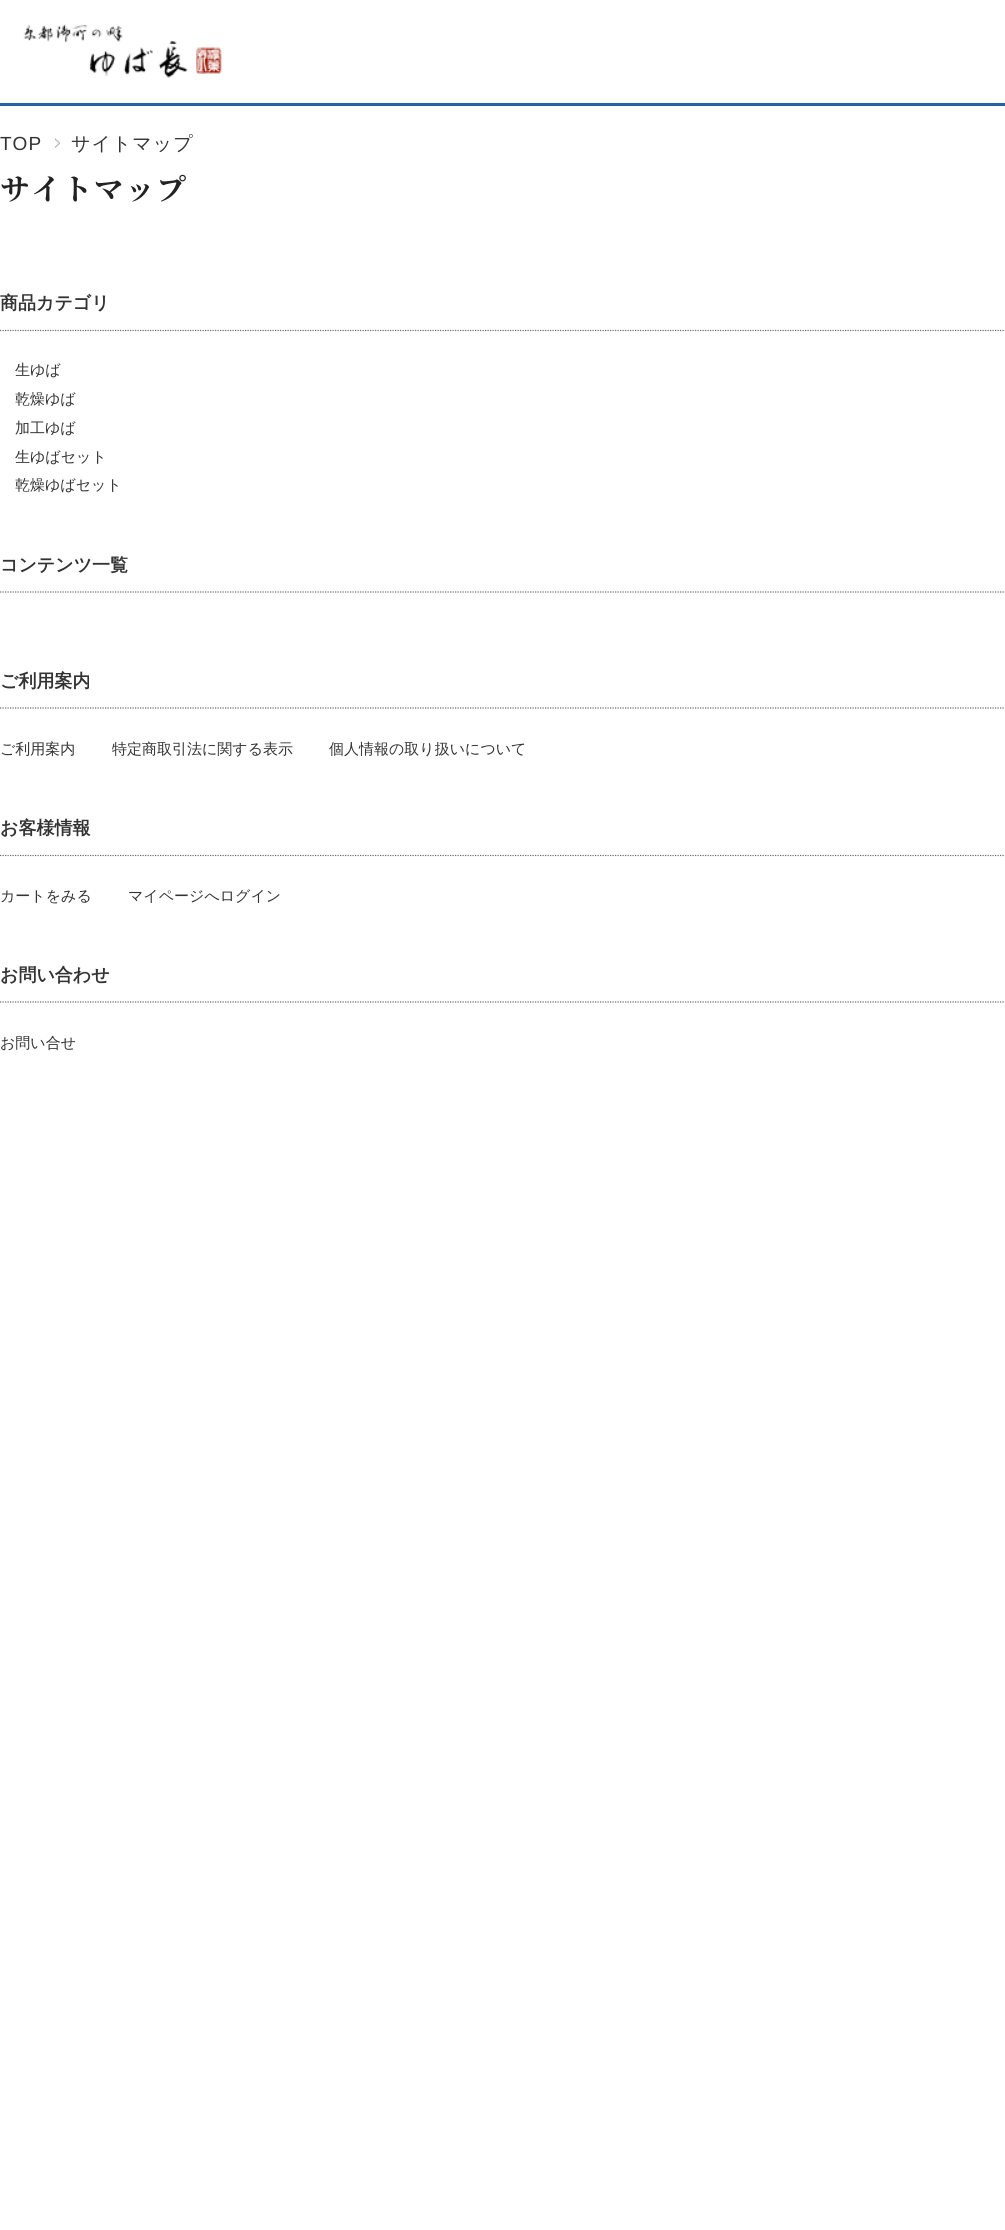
#include <cairo.h>
#include <math.h>
#include <stddef.h>

typedef struct { double x, y; const char *s; } line_t;

static void ink(cairo_t *ctx, unsigned color) {
    cairo_set_source_rgb(ctx, (color >> 16) / 255.0, (color >> 8 & 255) / 255.0, (color & 255) / 255.0);
}

static void write_spaced(cairo_t *ctx, double x, double y, const char *s, double letter, double word) {
    cairo_move_to(ctx, x, y);
    while (*s) {
        char ch[5] = {0};
        int n = 0;
        do ch[n++] = *s++; while ((*s & 0xC0) == 0x80);
        cairo_show_text(ctx, ch);
        cairo_rel_move_to(ctx, letter + word * (*ch == ' '), 0);
    }
}

static void paste(cairo_t *ctx, const char *path, double x, double y, double w, double h) {
    cairo_surface_t *image = cairo_image_surface_create_from_png(path);
    cairo_save(ctx);
    cairo_set_source_surface(ctx, image, x, y);
    cairo_rectangle(ctx, x, y, w, h);
    cairo_fill(ctx);
    cairo_restore(ctx);
    cairo_surface_destroy(image);
}

int main(void) {
    cairo_surface_t *surface = cairo_image_surface_create(CAIRO_FORMAT_RGB24, 1005, 2230);
    cairo_t *ctx = cairo_create(surface);
    cairo_font_options_t *options = cairo_font_options_create();
    cairo_font_options_set_hint_metrics(options, CAIRO_HINT_METRICS_OFF);
    cairo_font_options_set_hint_style(options, CAIRO_HINT_STYLE_NONE);
    cairo_set_font_options(ctx, options);
    cairo_set_miter_limit(ctx, 4);
    ink(ctx, 0xFFFFFF);
    cairo_paint(ctx);
    paste(ctx, "media/1.png", 23, 24, 199, 54);
    ink(ctx, 0x2563A3);
    cairo_rectangle(ctx, 0, 103, 1005, 3);
    cairo_fill(ctx);
    cairo_select_font_face(ctx, "Liberation Sans", CAIRO_FONT_SLANT_NORMAL, CAIRO_FONT_WEIGHT_NORMAL);
    cairo_set_font_size(ctx, 19);
    ink(ctx, 0x333333);
    write_spaced(ctx, 0, 150, "TOP", 1, 0);
    paste(ctx, "media/2.png", 55, 138, 5, 10);
    cairo_select_font_face(ctx, "WenQuanYi Zen Hei Medium", CAIRO_FONT_SLANT_NORMAL, CAIRO_FONT_WEIGHT_NORMAL);
    write_spaced(ctx, 71, 150, "サイトマップ", 1, 0);
    cairo_select_font_face(ctx, "Noto Serif JP", CAIRO_FONT_SLANT_NORMAL, CAIRO_FONT_WEIGHT_BOLD);
    cairo_set_font_size(ctx, 29.75);
    ink(ctx, 0x222222);
    write_spaced(ctx, 0, 200, "サイトマップ", 1.5, 0);
    cairo_new_path(ctx);
    cairo_move_to(ctx, 0, 330.5);
    cairo_line_to(ctx, 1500, 330.5);
    ink(ctx, 0x6B6B6B);
    cairo_set_line_width(ctx, 1.2);
    cairo_set_dash(ctx, (double[]){1.25, 1.25}, 2, 0);
    cairo_stroke(ctx);
    cairo_select_font_face(ctx, "WenQuanYi Zen Hei", CAIRO_FONT_SLANT_NORMAL, CAIRO_FONT_WEIGHT_BOLD);
    cairo_set_font_size(ctx, 18);
    ink(ctx, 0x333333);
    cairo_move_to(ctx, 0, 309);
    cairo_show_text(ctx, "商品カテゴリ");
    cairo_select_font_face(ctx, "WenQuanYi Zen Hei Medium", CAIRO_FONT_SLANT_NORMAL, CAIRO_FONT_WEIGHT_NORMAL);
    cairo_set_font_size(ctx, 15);
    {
        static const line_t items[] = {
            {15, 375, "生ゆば"},
            {15, 404, "乾燥ゆば"},
            {15, 433, "加工ゆば"},
            {15, 462, "生ゆばセット"},
            {15, 490, "乾燥ゆばセット"},
        };
        for (size_t i = 0; i < sizeof items / sizeof *items; i++) {
            cairo_move_to(ctx, items[i].x, items[i].y);
            cairo_show_text(ctx, items[i].s);
        }
    }
    cairo_new_path(ctx);
    cairo_move_to(ctx, 0, 592);
    cairo_line_to(ctx, 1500, 592);
    ink(ctx, 0x6B6B6B);
    cairo_stroke(ctx);
    cairo_select_font_face(ctx, "WenQuanYi Zen Hei", CAIRO_FONT_SLANT_NORMAL, CAIRO_FONT_WEIGHT_BOLD);
    cairo_set_font_size(ctx, 18);
    ink(ctx, 0x333333);
    cairo_move_to(ctx, 0, 571);
    cairo_show_text(ctx, "コンテンツ一覧");
    cairo_new_path(ctx);
    cairo_move_to(ctx, 0, 708);
    cairo_line_to(ctx, 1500, 708);
    ink(ctx, 0x6B6B6B);
    cairo_stroke(ctx);
    ink(ctx, 0x333333);
    cairo_move_to(ctx, 0, 687);
    cairo_show_text(ctx, "ご利用案内");
    cairo_select_font_face(ctx, "WenQuanYi Zen Hei Medium", CAIRO_FONT_SLANT_NORMAL, CAIRO_FONT_WEIGHT_NORMAL);
    cairo_set_font_size(ctx, 15);
    {
        static const line_t items[] = {
            {0, 754, "ご利用案内"},
            {112, 754, "特定商取引法に関する表示"},
            {329, 754, "個人情報の取り扱いについて"},
        };
        for (size_t i = 0; i < sizeof items / sizeof *items; i++) {
            cairo_move_to(ctx, items[i].x, items[i].y);
            cairo_show_text(ctx, items[i].s);
        }
    }
    cairo_new_path(ctx);
    cairo_move_to(ctx, 0, 855.5);
    cairo_line_to(ctx, 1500, 855.5);
    ink(ctx, 0x6B6B6B);
    cairo_stroke(ctx);
    cairo_select_font_face(ctx, "WenQuanYi Zen Hei", CAIRO_FONT_SLANT_NORMAL, CAIRO_FONT_WEIGHT_BOLD);
    cairo_set_font_size(ctx, 18);
    ink(ctx, 0x333333);
    cairo_move_to(ctx, 0, 834);
    cairo_show_text(ctx, "お客様情報");
    cairo_select_font_face(ctx, "WenQuanYi Zen Hei Medium", CAIRO_FONT_SLANT_NORMAL, CAIRO_FONT_WEIGHT_NORMAL);
    cairo_set_font_size(ctx, 15);
    cairo_move_to(ctx, 0, 901);
    cairo_show_text(ctx, "カートをみる");
    cairo_move_to(ctx, 128, 901);
    cairo_show_text(ctx, "マイページへログイン");
    cairo_new_path(ctx);
    cairo_move_to(ctx, 0, 1002);
    cairo_line_to(ctx, 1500, 1002);
    ink(ctx, 0x6B6B6B);
    cairo_stroke(ctx);
    cairo_select_font_face(ctx, "WenQuanYi Zen Hei", CAIRO_FONT_SLANT_NORMAL, CAIRO_FONT_WEIGHT_BOLD);
    cairo_set_font_size(ctx, 18);
    ink(ctx, 0x333333);
    cairo_move_to(ctx, 0, 981);
    cairo_show_text(ctx, "お問い合わせ");
    cairo_select_font_face(ctx, "WenQuanYi Zen Hei Medium", CAIRO_FONT_SLANT_NORMAL, CAIRO_FONT_WEIGHT_NORMAL);
    cairo_set_font_size(ctx, 15);
    cairo_move_to(ctx, 0, 1048);
    cairo_show_text(ctx, "お問い合せ");
    cairo_surface_write_to_png(surface, "image.png");
    cairo_font_options_destroy(options);
    cairo_destroy(ctx);
    cairo_surface_destroy(surface);
    return 0;
}
